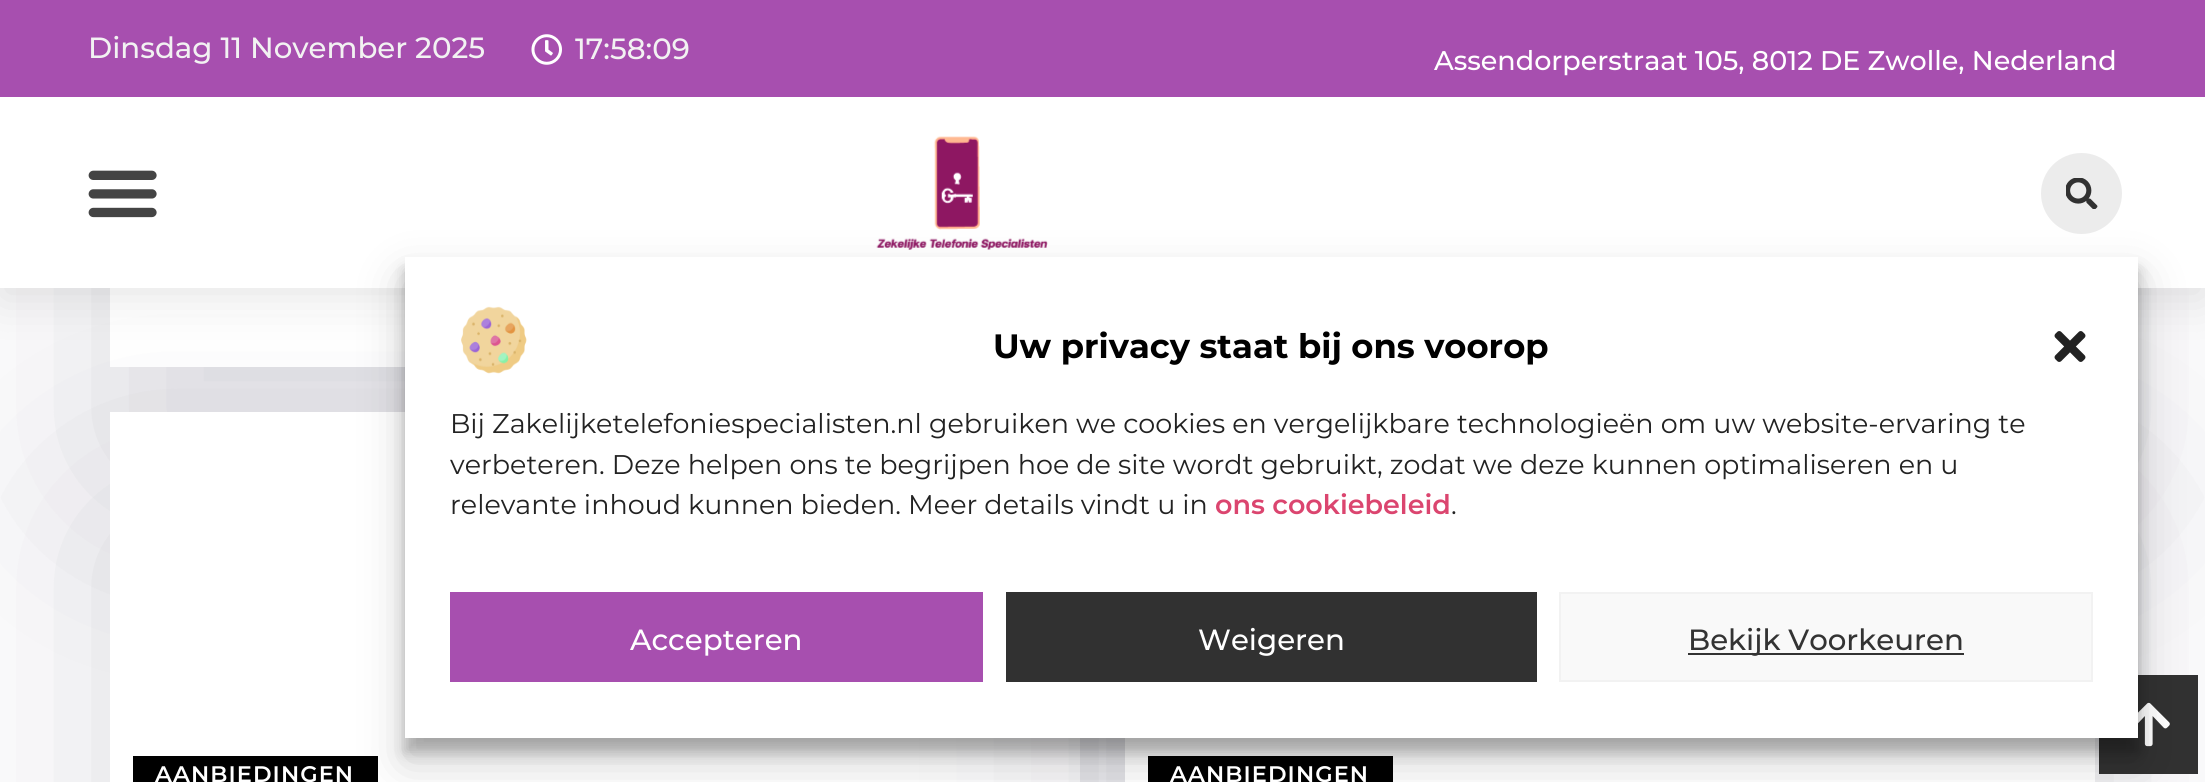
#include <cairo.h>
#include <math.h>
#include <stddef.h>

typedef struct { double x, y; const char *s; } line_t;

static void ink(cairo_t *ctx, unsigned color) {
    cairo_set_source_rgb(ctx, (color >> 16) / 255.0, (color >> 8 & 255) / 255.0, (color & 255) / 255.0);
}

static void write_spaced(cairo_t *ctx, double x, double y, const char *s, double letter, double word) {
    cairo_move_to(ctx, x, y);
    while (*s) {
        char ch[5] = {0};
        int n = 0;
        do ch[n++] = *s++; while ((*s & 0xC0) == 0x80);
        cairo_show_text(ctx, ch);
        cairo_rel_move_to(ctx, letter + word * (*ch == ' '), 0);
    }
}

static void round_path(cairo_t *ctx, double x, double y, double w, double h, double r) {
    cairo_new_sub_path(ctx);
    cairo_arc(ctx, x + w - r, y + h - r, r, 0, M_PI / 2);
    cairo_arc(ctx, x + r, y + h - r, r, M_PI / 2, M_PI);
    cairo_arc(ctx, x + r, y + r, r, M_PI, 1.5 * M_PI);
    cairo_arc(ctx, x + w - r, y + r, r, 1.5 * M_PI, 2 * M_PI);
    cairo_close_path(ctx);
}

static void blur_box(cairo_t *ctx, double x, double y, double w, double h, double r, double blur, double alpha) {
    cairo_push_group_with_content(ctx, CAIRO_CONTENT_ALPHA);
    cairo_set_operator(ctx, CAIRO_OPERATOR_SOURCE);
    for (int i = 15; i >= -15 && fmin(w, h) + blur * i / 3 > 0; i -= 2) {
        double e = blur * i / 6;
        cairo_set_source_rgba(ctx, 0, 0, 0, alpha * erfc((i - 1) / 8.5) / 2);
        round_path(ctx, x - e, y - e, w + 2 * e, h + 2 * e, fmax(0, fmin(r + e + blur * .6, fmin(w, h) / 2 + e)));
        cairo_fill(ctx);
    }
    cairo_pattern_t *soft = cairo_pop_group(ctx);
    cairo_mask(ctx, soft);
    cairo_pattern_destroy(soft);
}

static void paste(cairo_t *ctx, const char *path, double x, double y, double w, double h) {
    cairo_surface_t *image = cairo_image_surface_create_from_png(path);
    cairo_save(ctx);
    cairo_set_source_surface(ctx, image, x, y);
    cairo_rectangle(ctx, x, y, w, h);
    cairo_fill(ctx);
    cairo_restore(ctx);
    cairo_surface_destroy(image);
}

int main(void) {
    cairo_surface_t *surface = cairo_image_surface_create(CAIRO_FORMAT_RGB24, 2205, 782);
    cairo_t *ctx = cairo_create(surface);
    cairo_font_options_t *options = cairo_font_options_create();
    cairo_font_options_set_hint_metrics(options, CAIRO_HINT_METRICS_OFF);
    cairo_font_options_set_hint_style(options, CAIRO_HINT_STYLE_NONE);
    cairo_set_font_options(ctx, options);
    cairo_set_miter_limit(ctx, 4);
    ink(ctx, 0xFFFFFF);
    cairo_paint(ctx);
    ink(ctx, 0x110C2E);
    blur_box(ctx, 110, -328, 970, 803, 0, 112.5, 0.15);
    ink(ctx, 0xFFFFFF);
    cairo_rectangle(ctx, 110, 288, 295, 79);
    cairo_fill(ctx);
    ink(ctx, 0x000000);
    blur_box(ctx, 0, 11, 2205, 288, 0, 22.5, 0.1);
    ink(ctx, 0x110C2E);
    blur_box(ctx, 1125, -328, 970, 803, 0, 112.5, 0.15);
    ink(ctx, 0xA74FAF);
    cairo_rectangle(ctx, 0, 0, 2205, 97);
    cairo_fill(ctx);
    cairo_select_font_face(ctx, "Montserrat Medium", CAIRO_FONT_SLANT_NORMAL, CAIRO_FONT_WEIGHT_NORMAL);
    cairo_set_font_size(ctx, 29.25);
    ink(ctx, 0xF2F2F2);
    cairo_move_to(ctx, 88, 58);
    cairo_show_text(ctx, "Dinsdag 11 November 2025");
    paste(ctx, "media/1.png", 531, 34, 31, 31);
    cairo_move_to(ctx, 575, 59);
    cairo_show_text(ctx, "17:58:09");
    cairo_set_font_size(ctx, 27);
    ink(ctx, 0xFFFFFF);
    cairo_move_to(ctx, 1434, 70);
    cairo_show_text(ctx, "Assendorperstraat 105, 8012 DE Zwolle, Nederland");
    ink(ctx, 0x110C2E);
    blur_box(ctx, 110, 520, 970, 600, 0, 112.5, 0.15);
    ink(ctx, 0xFFFFFF);
    cairo_rectangle(ctx, 110, 412, 970, 370);
    cairo_fill(ctx);
    ink(ctx, 0x110C2E);
    blur_box(ctx, 1125, 520, 970, 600, 0, 112.5, 0.15);
    ink(ctx, 0xFFFFFF);
    cairo_rectangle(ctx, 0, 97, 2205, 191);
    cairo_fill(ctx);
    paste(ctx, "media/2.png", 88, 170, 69, 48);
    paste(ctx, "media/3.png", 876, 136, 172, 114);
    ink(ctx, 0xECECEC);
    cairo_arc(ctx, 2081.5, 193.5, 40.5, 0, 2 * M_PI);
    cairo_fill(ctx);
    paste(ctx, "media/4.png", 2066, 178, 32, 31);
    ink(ctx, 0x313131);
    cairo_rectangle(ctx, 2099, 675, 99, 99);
    cairo_fill(ctx);
    paste(ctx, "media/5.png", 2138, 702, 32, 45);
    ink(ctx, 0xFFFFFF);
    cairo_rectangle(ctx, 1125, 738, 970, 44);
    cairo_fill(ctx);
    ink(ctx, 0x000000);
    cairo_rectangle(ctx, 1148, 756, 245, 26);
    cairo_fill(ctx);
    ink(ctx, 0x000000);
    blur_box(ctx, 405, 270, 1733, 482, 0, 7, 0.23);
    ink(ctx, 0x000000);
    cairo_rectangle(ctx, 133, 756, 245, 26);
    cairo_fill(ctx);
    ink(ctx, 0x000000);
    blur_box(ctx, 405, 279, 1733, 482, 0, 22.5, 0.19);
    ink(ctx, 0xFFFFFF);
    cairo_rectangle(ctx, 405, 257, 1733, 481);
    cairo_fill(ctx);
    paste(ctx, "media/6.png", 461, 306, 66, 68);
    cairo_select_font_face(ctx, "Montserrat", CAIRO_FONT_SLANT_NORMAL, CAIRO_FONT_WEIGHT_BOLD);
    cairo_set_font_size(ctx, 33.75);
    ink(ctx, 0x000000);
    cairo_move_to(ctx, 993, 358);
    cairo_show_text(ctx, "Uw privacy staat bij ons voorop");
    paste(ctx, "media/7.png", 2054, 331, 32, 31);
    cairo_select_font_face(ctx, "Montserrat", CAIRO_FONT_SLANT_NORMAL, CAIRO_FONT_WEIGHT_NORMAL);
    cairo_set_font_size(ctx, 27);
    ink(ctx, 0x222222);
    {
        static const line_t items[] = {
            {450, 433, "Bij Zakelijketelefoniespecialisten.nl gebruiken we cookies en vergelijkbare technologieën om uw website-ervaring te"},
            {450, 474, "verbeteren. Deze helpen ons te begrijpen hoe de site wordt gebruikt, zodat we deze kunnen optimaliseren en u"},
            {450, 514, "relevante inhoud kunnen bieden. Meer details vindt u in"},
        };
        for (size_t i = 0; i < sizeof items / sizeof *items; i++) {
            cairo_move_to(ctx, items[i].x, items[i].y);
            cairo_show_text(ctx, items[i].s);
        }
    }
    cairo_select_font_face(ctx, "Montserrat SemiBold", CAIRO_FONT_SLANT_NORMAL, CAIRO_FONT_WEIGHT_NORMAL);
    ink(ctx, 0xDB456F);
    cairo_move_to(ctx, 1215, 514);
    cairo_show_text(ctx, "ons cookiebeleid");
    cairo_select_font_face(ctx, "Montserrat", CAIRO_FONT_SLANT_NORMAL, CAIRO_FONT_WEIGHT_NORMAL);
    ink(ctx, 0x222222);
    cairo_move_to(ctx, 1451, 514);
    cairo_show_text(ctx, ".");
    ink(ctx, 0xA74FAF);
    cairo_rectangle(ctx, 450, 592, 533, 90);
    cairo_fill(ctx);
    cairo_select_font_face(ctx, "Montserrat Medium", CAIRO_FONT_SLANT_NORMAL, CAIRO_FONT_WEIGHT_NORMAL);
    cairo_set_font_size(ctx, 29.25);
    ink(ctx, 0xFFFFFF);
    cairo_move_to(ctx, 630, 650);
    cairo_show_text(ctx, "Accepteren");
    ink(ctx, 0x313131);
    cairo_rectangle(ctx, 1006, 592, 531, 90);
    cairo_fill(ctx);
    ink(ctx, 0xFFFFFF);
    cairo_move_to(ctx, 1198, 650);
    cairo_show_text(ctx, "Weigeren");
    ink(ctx, 0xF9F9F9);
    cairo_rectangle(ctx, 1560, 593, 532, 88);
    cairo_fill_preserve(ctx);
    ink(ctx, 0xF2F2F2);
    cairo_stroke(ctx);
    ink(ctx, 0x333333);
    cairo_rectangle(ctx, 1688, 653, 276, 2);
    cairo_fill(ctx);
    cairo_move_to(ctx, 1688, 650);
    cairo_show_text(ctx, "Bekijk Voorkeuren");
    cairo_select_font_face(ctx, "Montserrat SemiBold", CAIRO_FONT_SLANT_NORMAL, CAIRO_FONT_WEIGHT_NORMAL);
    cairo_set_font_size(ctx, 22.5);
    ink(ctx, 0xFFFFFF);
    write_spaced(ctx, 155, 782, "AANBIEDINGEN", 1.1, 0);
    write_spaced(ctx, 1170, 782, "AANBIEDINGEN", 1.1, 0);
    cairo_surface_write_to_png(surface, "image.png");
    cairo_font_options_destroy(options);
    cairo_destroy(ctx);
    cairo_surface_destroy(surface);
    return 0;
}
